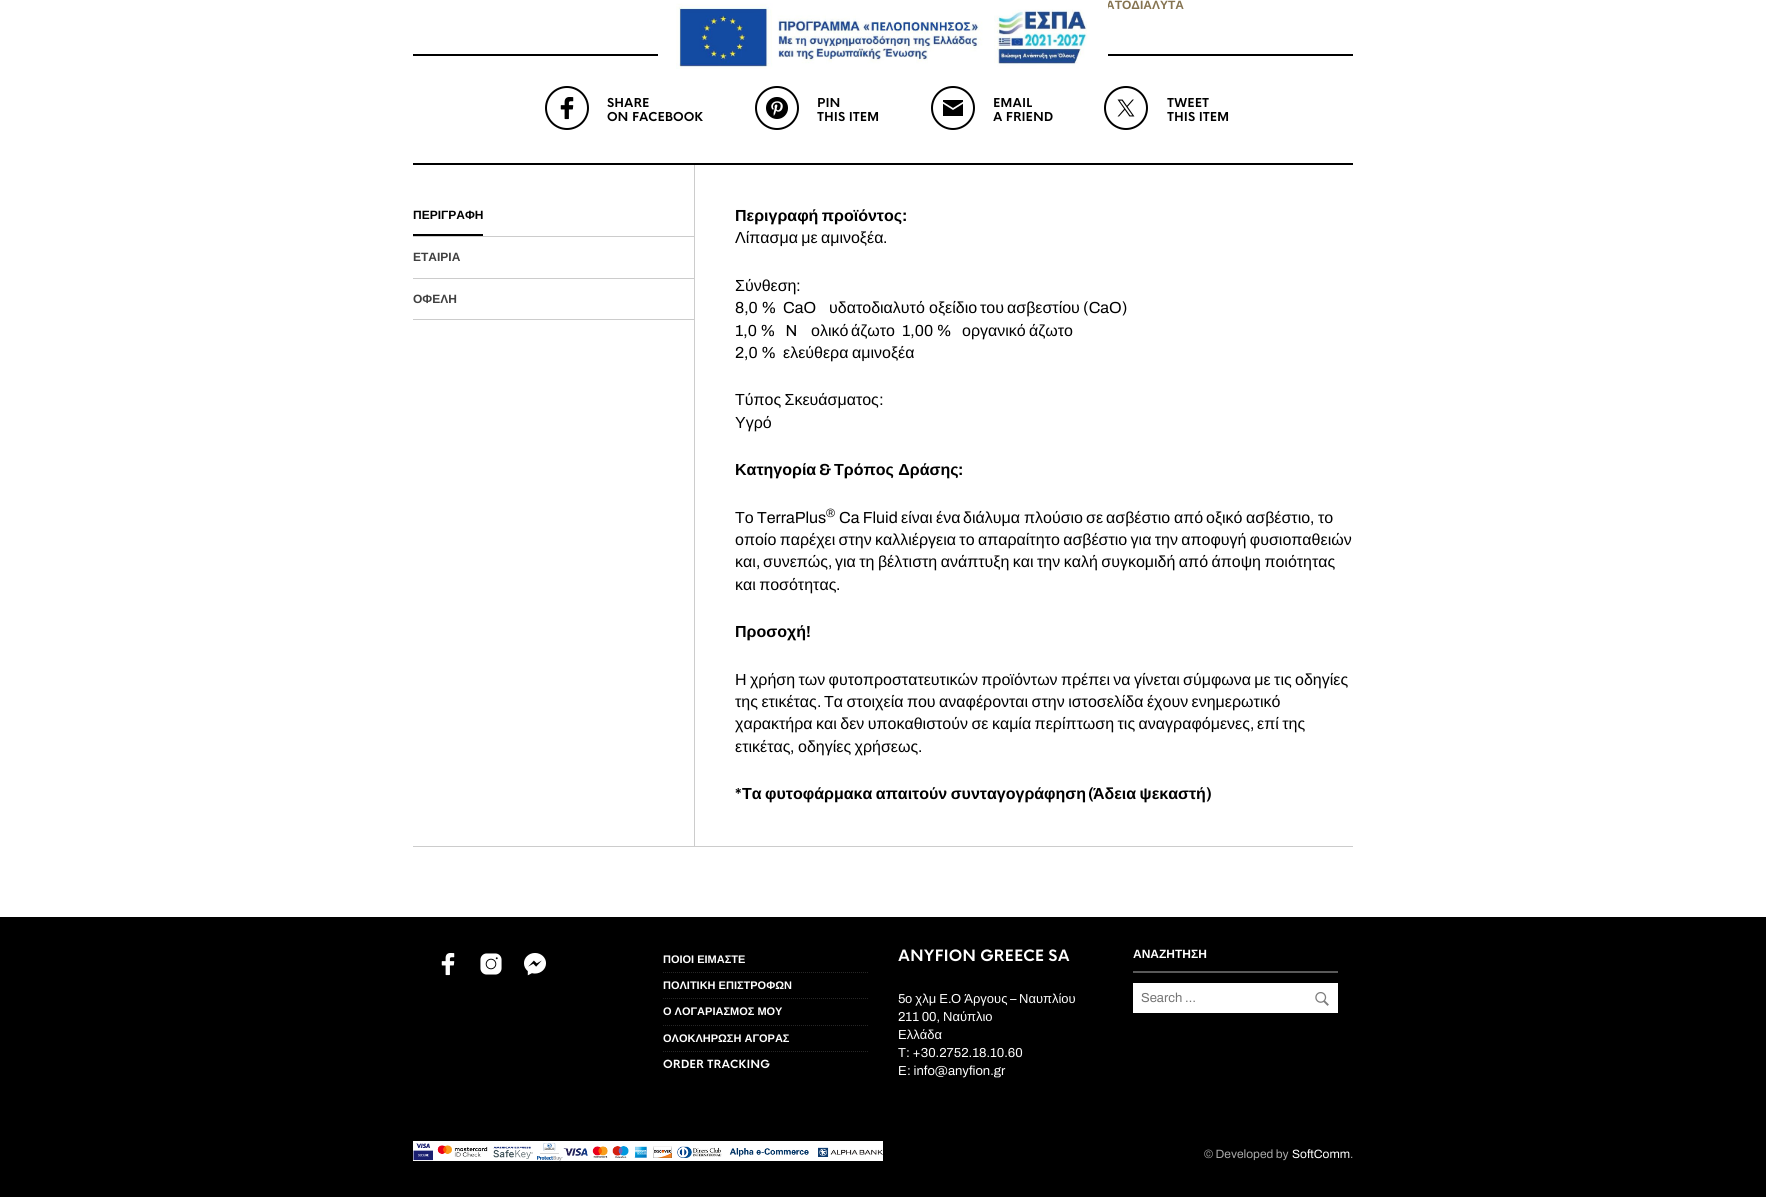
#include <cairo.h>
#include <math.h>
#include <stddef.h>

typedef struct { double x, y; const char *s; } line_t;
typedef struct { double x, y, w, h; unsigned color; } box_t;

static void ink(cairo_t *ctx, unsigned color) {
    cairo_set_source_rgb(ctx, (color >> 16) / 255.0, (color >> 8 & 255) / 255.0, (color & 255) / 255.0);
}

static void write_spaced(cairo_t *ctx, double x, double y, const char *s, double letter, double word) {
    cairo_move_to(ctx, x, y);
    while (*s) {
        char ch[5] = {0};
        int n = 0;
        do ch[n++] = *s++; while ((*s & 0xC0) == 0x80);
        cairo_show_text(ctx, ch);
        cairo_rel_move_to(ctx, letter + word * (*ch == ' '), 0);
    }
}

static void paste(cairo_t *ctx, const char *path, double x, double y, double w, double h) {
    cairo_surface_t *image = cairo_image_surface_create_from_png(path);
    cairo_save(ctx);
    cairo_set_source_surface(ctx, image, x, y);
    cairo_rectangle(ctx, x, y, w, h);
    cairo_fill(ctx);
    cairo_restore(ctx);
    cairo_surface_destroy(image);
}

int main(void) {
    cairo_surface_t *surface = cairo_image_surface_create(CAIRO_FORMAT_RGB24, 1766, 1197);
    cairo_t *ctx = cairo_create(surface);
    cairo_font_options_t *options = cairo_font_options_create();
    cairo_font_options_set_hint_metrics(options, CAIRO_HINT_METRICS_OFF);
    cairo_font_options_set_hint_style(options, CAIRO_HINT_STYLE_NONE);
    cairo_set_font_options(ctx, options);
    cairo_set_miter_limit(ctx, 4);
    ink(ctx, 0xFFFFFF);
    cairo_paint(ctx);
    cairo_select_font_face(ctx, "Liberation Sans", CAIRO_FONT_SLANT_NORMAL, CAIRO_FONT_WEIGHT_BOLD);
    cairo_set_font_size(ctx, 12);
    ink(ctx, 0x857350);
    write_spaced(ctx, 1106, 9, "ΑΤΟΔΙΑΛΥΤΑ", 0, 1);
    ink(ctx, 0x000000);
    cairo_rectangle(ctx, 413, 54, 940, 2);
    cairo_fill(ctx);
    cairo_rectangle(ctx, 413, 163, 940, 2);
    cairo_fill(ctx);
    cairo_arc(ctx, 567, 108, 21, 0, 2 * M_PI);
    cairo_stroke(ctx);
    paste(ctx, "media/1.png", 560, 97, 14, 23);
    cairo_select_font_face(ctx, "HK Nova", CAIRO_FONT_SLANT_NORMAL, CAIRO_FONT_WEIGHT_BOLD);
    cairo_move_to(ctx, 607, 107);
    cairo_show_text(ctx, "SHARE");
    cairo_move_to(ctx, 607, 121);
    cairo_show_text(ctx, "ON FACEBOOK");
    cairo_new_path(ctx);
    cairo_arc(ctx, 777, 108, 21, 0, 2 * M_PI);
    cairo_stroke(ctx);
    paste(ctx, "media/2.png", 766, 97, 22, 22);
    cairo_move_to(ctx, 817, 107);
    cairo_show_text(ctx, "PIN");
    cairo_move_to(ctx, 817, 121);
    cairo_show_text(ctx, "THIS ITEM");
    cairo_new_path(ctx);
    cairo_arc(ctx, 953, 108, 21, 0, 2 * M_PI);
    cairo_stroke(ctx);
    paste(ctx, "media/3.png", 943, 100, 20, 16);
    cairo_move_to(ctx, 993, 107);
    cairo_show_text(ctx, "EMAIL");
    cairo_move_to(ctx, 993, 121);
    cairo_show_text(ctx, "A FRIEND");
    cairo_new_path(ctx);
    cairo_arc(ctx, 1126, 108, 21, 0, 2 * M_PI);
    cairo_stroke(ctx);
    paste(ctx, "media/4.png", 1117, 99, 18, 18);
    cairo_move_to(ctx, 1167, 107);
    cairo_show_text(ctx, "TWEET");
    cairo_move_to(ctx, 1167, 121);
    cairo_show_text(ctx, "THIS ITEM");
    {
        static const box_t items[] = {
            {413, 846, 940, 1, 0xCCCCCC},
            {694, 165, 1, 681, 0xCCCCCC},
            {413, 236, 281, 1, 0xCCCCCC},
            {413, 234, 70, 2, 0x000000},
        };
        for (size_t i = 0; i < sizeof items / sizeof *items; i++) {
            ink(ctx, items[i].color);
            cairo_rectangle(ctx, items[i].x, items[i].y, items[i].w, items[i].h);
            cairo_fill(ctx);
        }
    }
    cairo_select_font_face(ctx, "Liberation Sans", CAIRO_FONT_SLANT_NORMAL, CAIRO_FONT_WEIGHT_BOLD);
    cairo_move_to(ctx, 413, 219);
    cairo_show_text(ctx, "ΠΕΡΙΓΡΑΦΗ");
    ink(ctx, 0xCCCCCC);
    cairo_rectangle(ctx, 413, 278, 281, 1);
    cairo_fill(ctx);
    ink(ctx, 0x404040);
    cairo_move_to(ctx, 413, 261);
    cairo_show_text(ctx, "ΕΤΑΙΡΙΑ");
    ink(ctx, 0xCCCCCC);
    cairo_rectangle(ctx, 413, 319, 281, 1);
    cairo_fill(ctx);
    ink(ctx, 0x404040);
    cairo_move_to(ctx, 413, 303);
    cairo_show_text(ctx, "ΟΦΕΛΗ");
    cairo_set_font_size(ctx, 16);
    ink(ctx, 0x000000);
    write_spaced(ctx, 735, 221, "Περιγραφή προϊόντος", 0, -1);
    cairo_select_font_face(ctx, "Archivo", CAIRO_FONT_SLANT_NORMAL, CAIRO_FONT_WEIGHT_BOLD);
    cairo_move_to(ctx, 902, 221);
    cairo_show_text(ctx, ":");
    cairo_select_font_face(ctx, "Liberation Sans", CAIRO_FONT_SLANT_NORMAL, CAIRO_FONT_WEIGHT_NORMAL);
    write_spaced(ctx, 735, 243, "Λίπασμα με αμινοξέα", 0, -1.1);
    cairo_select_font_face(ctx, "Archivo", CAIRO_FONT_SLANT_NORMAL, CAIRO_FONT_WEIGHT_NORMAL);
    cairo_move_to(ctx, 883, 243);
    cairo_show_text(ctx, ".");
    cairo_select_font_face(ctx, "Liberation Sans", CAIRO_FONT_SLANT_NORMAL, CAIRO_FONT_WEIGHT_NORMAL);
    cairo_move_to(ctx, 735, 291);
    cairo_show_text(ctx, "Σύνθεση");
    cairo_select_font_face(ctx, "Archivo", CAIRO_FONT_SLANT_NORMAL, CAIRO_FONT_WEIGHT_NORMAL);
    cairo_move_to(ctx, 796, 291);
    cairo_show_text(ctx, ":");
    cairo_move_to(ctx, 735, 313);
    cairo_show_text(ctx, "8,0 %  CaO");
    cairo_select_font_face(ctx, "Liberation Sans", CAIRO_FONT_SLANT_NORMAL, CAIRO_FONT_WEIGHT_NORMAL);
    {
        static const line_t items[] = {
            {829, 313, "υδατοδιαλυτό"},
            {929, 313, "οξείδιο"},
            {980, 313, "του"},
            {1007, 313, "ασβεστίου"},
        };
        for (size_t i = 0; i < sizeof items / sizeof *items; i++) {
            cairo_move_to(ctx, items[i].x, items[i].y);
            cairo_show_text(ctx, items[i].s);
        }
    }
    cairo_select_font_face(ctx, "Archivo", CAIRO_FONT_SLANT_NORMAL, CAIRO_FONT_WEIGHT_NORMAL);
    cairo_move_to(ctx, 1083, 313);
    cairo_show_text(ctx, "(CaO)");
    cairo_move_to(ctx, 735, 336);
    cairo_show_text(ctx, "1,0 %   N");
    cairo_select_font_face(ctx, "Liberation Sans", CAIRO_FONT_SLANT_NORMAL, CAIRO_FONT_WEIGHT_NORMAL);
    cairo_move_to(ctx, 811, 336);
    cairo_show_text(ctx, "ολικό");
    cairo_move_to(ctx, 851, 336);
    cairo_show_text(ctx, "άζωτο");
    cairo_select_font_face(ctx, "Archivo", CAIRO_FONT_SLANT_NORMAL, CAIRO_FONT_WEIGHT_NORMAL);
    cairo_move_to(ctx, 902, 336);
    cairo_show_text(ctx, "1,00 %");
    cairo_select_font_face(ctx, "Liberation Sans", CAIRO_FONT_SLANT_NORMAL, CAIRO_FONT_WEIGHT_NORMAL);
    cairo_move_to(ctx, 962, 336);
    cairo_show_text(ctx, "οργανικό");
    cairo_move_to(ctx, 1029, 336);
    cairo_show_text(ctx, "άζωτο");
    cairo_select_font_face(ctx, "Archivo", CAIRO_FONT_SLANT_NORMAL, CAIRO_FONT_WEIGHT_NORMAL);
    cairo_move_to(ctx, 735, 358);
    cairo_show_text(ctx, "2,0 %");
    cairo_select_font_face(ctx, "Liberation Sans", CAIRO_FONT_SLANT_NORMAL, CAIRO_FONT_WEIGHT_NORMAL);
    cairo_move_to(ctx, 783, 358);
    cairo_show_text(ctx, "ελεύθερα");
    cairo_move_to(ctx, 852, 358);
    cairo_show_text(ctx, "αμινοξέα");
    write_spaced(ctx, 735, 405, "Τύπος Σκευάσματος", 0, -1.1);
    cairo_select_font_face(ctx, "Archivo", CAIRO_FONT_SLANT_NORMAL, CAIRO_FONT_WEIGHT_NORMAL);
    cairo_move_to(ctx, 879, 405);
    cairo_show_text(ctx, ":");
    cairo_select_font_face(ctx, "Liberation Sans", CAIRO_FONT_SLANT_NORMAL, CAIRO_FONT_WEIGHT_NORMAL);
    cairo_move_to(ctx, 735, 428);
    cairo_show_text(ctx, "Υγρό");
    cairo_select_font_face(ctx, "Liberation Sans", CAIRO_FONT_SLANT_NORMAL, CAIRO_FONT_WEIGHT_BOLD);
    cairo_move_to(ctx, 735, 475);
    cairo_show_text(ctx, "Κατηγορία");
    cairo_select_font_face(ctx, "Archivo", CAIRO_FONT_SLANT_NORMAL, CAIRO_FONT_WEIGHT_BOLD);
    cairo_move_to(ctx, 819, 475);
    cairo_show_text(ctx, "&");
    cairo_select_font_face(ctx, "Liberation Sans", CAIRO_FONT_SLANT_NORMAL, CAIRO_FONT_WEIGHT_BOLD);
    cairo_move_to(ctx, 834, 475);
    cairo_show_text(ctx, "Τρόπος Δράσης");
    cairo_select_font_face(ctx, "Archivo", CAIRO_FONT_SLANT_NORMAL, CAIRO_FONT_WEIGHT_BOLD);
    cairo_move_to(ctx, 958, 475);
    cairo_show_text(ctx, ":");
    cairo_select_font_face(ctx, "Liberation Sans", CAIRO_FONT_SLANT_NORMAL, CAIRO_FONT_WEIGHT_NORMAL);
    cairo_move_to(ctx, 735, 523);
    cairo_show_text(ctx, "Το");
    cairo_select_font_face(ctx, "Archivo", CAIRO_FONT_SLANT_NORMAL, CAIRO_FONT_WEIGHT_NORMAL);
    cairo_move_to(ctx, 757, 523);
    cairo_show_text(ctx, "TerraPlus");
    cairo_set_font_size(ctx, 12);
    cairo_move_to(ctx, 826, 517);
    cairo_show_text(ctx, "®");
    cairo_set_font_size(ctx, 16);
    cairo_move_to(ctx, 839, 523);
    cairo_show_text(ctx, "Ca Fluid");
    cairo_select_font_face(ctx, "Liberation Sans", CAIRO_FONT_SLANT_NORMAL, CAIRO_FONT_WEIGHT_NORMAL);
    {
        static const line_t items[] = {
            {901, 523, "είναι"},
            {936, 523, "ένα"},
            {963, 523, "διάλυμα"},
            {1024, 523, "πλούσιο"},
            {1086, 523, "σε"},
            {1106, 523, "ασβέστιο"},
            {1174, 523, "από"},
            {1206, 523, "οξικό"},
            {1246, 523, "ασβέστιο"},
        };
        for (size_t i = 0; i < sizeof items / sizeof *items; i++) {
            cairo_move_to(ctx, items[i].x, items[i].y);
            cairo_show_text(ctx, items[i].s);
        }
    }
    cairo_select_font_face(ctx, "Archivo", CAIRO_FONT_SLANT_NORMAL, CAIRO_FONT_WEIGHT_NORMAL);
    cairo_move_to(ctx, 1310, 523);
    cairo_show_text(ctx, ",");
    cairo_select_font_face(ctx, "Liberation Sans", CAIRO_FONT_SLANT_NORMAL, CAIRO_FONT_WEIGHT_NORMAL);
    cairo_move_to(ctx, 1318, 523);
    cairo_show_text(ctx, "το");
    write_spaced(ctx, 735, 545, "οποίο παρέχει στην καλλιέργεια το απαραίτητο ασβέστιο για την αποφυγή φυσιοπαθειών", 0, -1.1);
    cairo_move_to(ctx, 735, 567);
    cairo_show_text(ctx, "και");
    cairo_select_font_face(ctx, "Archivo", CAIRO_FONT_SLANT_NORMAL, CAIRO_FONT_WEIGHT_NORMAL);
    cairo_move_to(ctx, 756, 567);
    cairo_show_text(ctx, ",");
    cairo_select_font_face(ctx, "Liberation Sans", CAIRO_FONT_SLANT_NORMAL, CAIRO_FONT_WEIGHT_NORMAL);
    cairo_move_to(ctx, 763, 567);
    cairo_show_text(ctx, "συνεπώς");
    cairo_select_font_face(ctx, "Archivo", CAIRO_FONT_SLANT_NORMAL, CAIRO_FONT_WEIGHT_NORMAL);
    cairo_move_to(ctx, 828, 567);
    cairo_show_text(ctx, ",");
    cairo_select_font_face(ctx, "Liberation Sans", CAIRO_FONT_SLANT_NORMAL, CAIRO_FONT_WEIGHT_NORMAL);
    write_spaced(ctx, 835, 567, "για τη βέλτιστη ανάπτυξη και την καλή συγκομιδή από άποψη ποιότητας", 0, -1);
    write_spaced(ctx, 735, 590, "και ποσότητας", 0, -1.1);
    cairo_select_font_face(ctx, "Archivo", CAIRO_FONT_SLANT_NORMAL, CAIRO_FONT_WEIGHT_NORMAL);
    cairo_move_to(ctx, 836, 590);
    cairo_show_text(ctx, ".");
    cairo_select_font_face(ctx, "Liberation Sans", CAIRO_FONT_SLANT_NORMAL, CAIRO_FONT_WEIGHT_BOLD);
    cairo_move_to(ctx, 735, 637);
    cairo_show_text(ctx, "Προσοχή");
    cairo_select_font_face(ctx, "Archivo", CAIRO_FONT_SLANT_NORMAL, CAIRO_FONT_WEIGHT_BOLD);
    cairo_move_to(ctx, 806, 637);
    cairo_show_text(ctx, "!");
    cairo_select_font_face(ctx, "Liberation Sans", CAIRO_FONT_SLANT_NORMAL, CAIRO_FONT_WEIGHT_NORMAL);
    write_spaced(ctx, 735, 685, "Η χρήση των φυτοπροστατευτικών προϊόντων πρέπει να γίνεται σύμφωνα με τις οδηγίες", 0, -1.1);
    write_spaced(ctx, 735, 707, "της ετικέτας", 0, -1);
    cairo_select_font_face(ctx, "Archivo", CAIRO_FONT_SLANT_NORMAL, CAIRO_FONT_WEIGHT_NORMAL);
    cairo_move_to(ctx, 817, 707);
    cairo_show_text(ctx, ".");
    cairo_select_font_face(ctx, "Liberation Sans", CAIRO_FONT_SLANT_NORMAL, CAIRO_FONT_WEIGHT_NORMAL);
    write_spaced(ctx, 824, 707, "Τα στοιχεία που αναφέρονται στην ιστοσελίδα έχουν ενημερωτικό", 0, -1);
    write_spaced(ctx, 735, 729, "χαρακτήρα και δεν υποκαθιστούν σε καμία περίπτωση τις αναγραφόμενες", 0, -1);
    cairo_select_font_face(ctx, "Archivo", CAIRO_FONT_SLANT_NORMAL, CAIRO_FONT_WEIGHT_NORMAL);
    cairo_move_to(ctx, 1250, 729);
    cairo_show_text(ctx, ",");
    cairo_select_font_face(ctx, "Liberation Sans", CAIRO_FONT_SLANT_NORMAL, CAIRO_FONT_WEIGHT_NORMAL);
    write_spaced(ctx, 1257, 729, "επί της", 0, -1);
    cairo_move_to(ctx, 735, 752);
    cairo_show_text(ctx, "ετικέτας");
    cairo_select_font_face(ctx, "Archivo", CAIRO_FONT_SLANT_NORMAL, CAIRO_FONT_WEIGHT_NORMAL);
    cairo_move_to(ctx, 790, 752);
    cairo_show_text(ctx, ",");
    cairo_select_font_face(ctx, "Liberation Sans", CAIRO_FONT_SLANT_NORMAL, CAIRO_FONT_WEIGHT_NORMAL);
    write_spaced(ctx, 798, 752, "οδηγίες χρήσεως", 0, -1);
    cairo_select_font_face(ctx, "Archivo", CAIRO_FONT_SLANT_NORMAL, CAIRO_FONT_WEIGHT_NORMAL);
    cairo_move_to(ctx, 918, 752);
    cairo_show_text(ctx, ".");
    cairo_select_font_face(ctx, "Archivo", CAIRO_FONT_SLANT_NORMAL, CAIRO_FONT_WEIGHT_BOLD);
    cairo_move_to(ctx, 735, 799);
    cairo_show_text(ctx, "*");
    cairo_select_font_face(ctx, "Liberation Sans", CAIRO_FONT_SLANT_NORMAL, CAIRO_FONT_WEIGHT_BOLD);
    write_spaced(ctx, 742, 799, "Τα φυτοφάρμακα απαιτούν συνταγογράφηση", 0, -1);
    cairo_select_font_face(ctx, "Archivo", CAIRO_FONT_SLANT_NORMAL, CAIRO_FONT_WEIGHT_BOLD);
    cairo_move_to(ctx, 1088, 799);
    cairo_show_text(ctx, "(");
    cairo_select_font_face(ctx, "Liberation Sans", CAIRO_FONT_SLANT_NORMAL, CAIRO_FONT_WEIGHT_BOLD);
    write_spaced(ctx, 1093, 799, "Άδεια ψεκαστή", 0, -1);
    cairo_select_font_face(ctx, "Archivo", CAIRO_FONT_SLANT_NORMAL, CAIRO_FONT_WEIGHT_BOLD);
    cairo_move_to(ctx, 1206, 799);
    cairo_show_text(ctx, ")");
    cairo_rectangle(ctx, 0, 917, 1766, 280);
    cairo_fill(ctx);
    paste(ctx, "media/5.png", 441, 953, 14, 23);
    paste(ctx, "media/6.png", 480, 953, 22, 22);
    paste(ctx, "media/7.png", 524, 953, 22, 23);
    cairo_new_path(ctx);
    cairo_move_to(ctx, 663, 972.5);
    cairo_line_to(ctx, 868, 972.5);
    ink(ctx, 0x262626);
    cairo_set_line_width(ctx, 1);
    cairo_set_dash(ctx, (double[]){1, 1}, 2, 0);
    cairo_stroke(ctx);
    cairo_select_font_face(ctx, "Liberation Sans", CAIRO_FONT_SLANT_NORMAL, CAIRO_FONT_WEIGHT_BOLD);
    cairo_set_font_size(ctx, 11);
    ink(ctx, 0xFFFFFF);
    cairo_move_to(ctx, 663, 963);
    cairo_show_text(ctx, "ΠΟΙΟΙ ΕΙΜΑΣΤΕ");
    cairo_new_path(ctx);
    cairo_move_to(ctx, 663, 998.5);
    cairo_line_to(ctx, 868, 998.5);
    ink(ctx, 0x262626);
    cairo_stroke(ctx);
    ink(ctx, 0xFFFFFF);
    cairo_move_to(ctx, 663, 989);
    cairo_show_text(ctx, "ΠΟΛΙΤΙΚΗ ΕΠΙΣΤΡΟΦΩΝ");
    cairo_new_path(ctx);
    cairo_move_to(ctx, 663, 1025.5);
    cairo_line_to(ctx, 868, 1025.5);
    ink(ctx, 0x262626);
    cairo_stroke(ctx);
    ink(ctx, 0xFFFFFF);
    cairo_move_to(ctx, 663, 1015);
    cairo_show_text(ctx, "Ο ΛΟΓΑΡΙΑΣΜΟΣ ΜΟΥ");
    cairo_new_path(ctx);
    cairo_move_to(ctx, 663, 1051.5);
    cairo_line_to(ctx, 868, 1051.5);
    ink(ctx, 0x262626);
    cairo_stroke(ctx);
    ink(ctx, 0xFFFFFF);
    cairo_move_to(ctx, 663, 1042);
    cairo_show_text(ctx, "ΟΛΟΚΛΗΡΩΣΗ ΑΓΟΡΑΣ");
    cairo_select_font_face(ctx, "HK Nova", CAIRO_FONT_SLANT_NORMAL, CAIRO_FONT_WEIGHT_BOLD);
    cairo_move_to(ctx, 663, 1068);
    cairo_show_text(ctx, "ORDER TRACKING");
    cairo_set_font_size(ctx, 15.25);
    cairo_move_to(ctx, 898, 961);
    cairo_show_text(ctx, "ANYFION GREECE SA");
    cairo_select_font_face(ctx, "Archivo", CAIRO_FONT_SLANT_NORMAL, CAIRO_FONT_WEIGHT_NORMAL);
    cairo_set_font_size(ctx, 13);
    cairo_move_to(ctx, 898, 1003);
    cairo_show_text(ctx, "5");
    cairo_select_font_face(ctx, "Liberation Sans", CAIRO_FONT_SLANT_NORMAL, CAIRO_FONT_WEIGHT_NORMAL);
    write_spaced(ctx, 905, 1003, "ο χλμ Ε Ο Άργους", 0, -0.5);
    cairo_select_font_face(ctx, "Archivo", CAIRO_FONT_SLANT_NORMAL, CAIRO_FONT_WEIGHT_NORMAL);
    cairo_move_to(ctx, 1010, 1003);
    cairo_show_text(ctx, "–");
    cairo_select_font_face(ctx, "Liberation Sans", CAIRO_FONT_SLANT_NORMAL, CAIRO_FONT_WEIGHT_NORMAL);
    cairo_move_to(ctx, 1019, 1003);
    cairo_show_text(ctx, "Ναυπλίου");
    cairo_select_font_face(ctx, "Archivo", CAIRO_FONT_SLANT_NORMAL, CAIRO_FONT_WEIGHT_NORMAL);
    cairo_move_to(ctx, 948, 1003);
    cairo_show_text(ctx, ".");
    cairo_move_to(ctx, 898, 1021);
    cairo_show_text(ctx, "211 00,");
    cairo_select_font_face(ctx, "Liberation Sans", CAIRO_FONT_SLANT_NORMAL, CAIRO_FONT_WEIGHT_NORMAL);
    {
        static const line_t items[] = {
            {943, 1021, "Ναύπλιο"},
            {898, 1039, "Ελλάδα"},
            {898, 1057, "Τ"},
        };
        for (size_t i = 0; i < sizeof items / sizeof *items; i++) {
            cairo_move_to(ctx, items[i].x, items[i].y);
            cairo_show_text(ctx, items[i].s);
        }
    }
    cairo_select_font_face(ctx, "Archivo", CAIRO_FONT_SLANT_NORMAL, CAIRO_FONT_WEIGHT_NORMAL);
    cairo_move_to(ctx, 906, 1057);
    cairo_show_text(ctx, ": +30.2752.18.10.60");
    cairo_select_font_face(ctx, "Liberation Sans", CAIRO_FONT_SLANT_NORMAL, CAIRO_FONT_WEIGHT_NORMAL);
    cairo_move_to(ctx, 898, 1075);
    cairo_show_text(ctx, "Ε");
    cairo_select_font_face(ctx, "Archivo", CAIRO_FONT_SLANT_NORMAL, CAIRO_FONT_WEIGHT_NORMAL);
    cairo_move_to(ctx, 907, 1075);
    cairo_show_text(ctx, ": info@anyfion.gr");
    ink(ctx, 0x595959);
    cairo_rectangle(ctx, 1133, 971, 205, 2);
    cairo_fill(ctx);
    cairo_select_font_face(ctx, "Liberation Sans", CAIRO_FONT_SLANT_NORMAL, CAIRO_FONT_WEIGHT_BOLD);
    cairo_set_font_size(ctx, 12);
    ink(ctx, 0xFFFFFF);
    cairo_move_to(ctx, 1133, 958);
    cairo_show_text(ctx, "ΑΝΑΖΗΤΗΣΗ");
    cairo_rectangle(ctx, 1133, 983, 205, 30);
    cairo_fill(ctx);
    cairo_select_font_face(ctx, "Archivo", CAIRO_FONT_SLANT_NORMAL, CAIRO_FONT_WEIGHT_NORMAL);
    cairo_set_font_size(ctx, 13);
    ink(ctx, 0x757575);
    cairo_move_to(ctx, 1141, 1002);
    cairo_show_text(ctx, "Search …");
    paste(ctx, "media/8.png", 1315, 992, 14, 14);
    paste(ctx, "media/9.png", 413, 1141, 470, 20);
    cairo_set_font_size(ctx, 12);
    ink(ctx, 0xA8A8A8);
    cairo_move_to(ctx, 1204, 1158);
    cairo_show_text(ctx, "© Developed by");
    ink(ctx, 0xFFFFFF);
    cairo_move_to(ctx, 1292, 1158);
    cairo_show_text(ctx, "SoftComm");
    ink(ctx, 0xA8A8A8);
    cairo_move_to(ctx, 1350, 1158);
    cairo_show_text(ctx, ".");
    paste(ctx, "media/10.png", 658, 0, 450, 69);
    cairo_surface_write_to_png(surface, "image.png");
    cairo_font_options_destroy(options);
    cairo_destroy(ctx);
    cairo_surface_destroy(surface);
    return 0;
}
